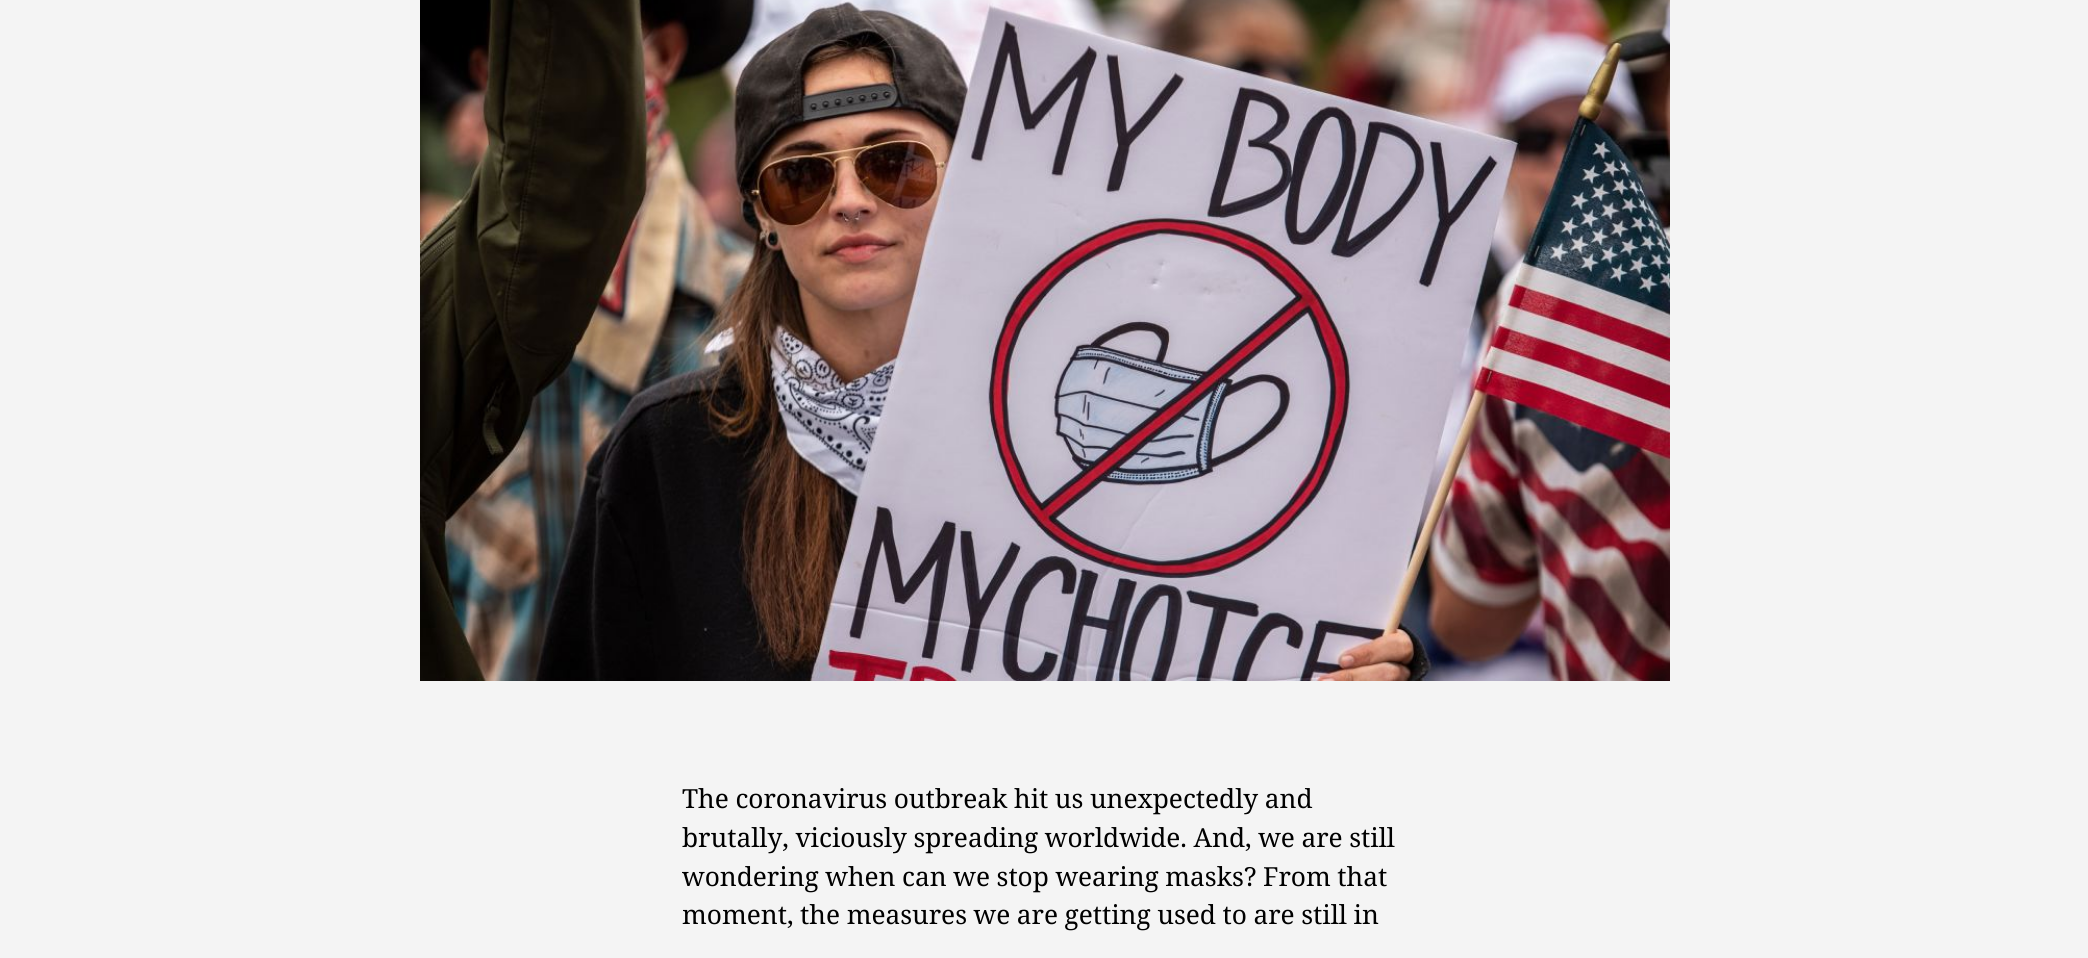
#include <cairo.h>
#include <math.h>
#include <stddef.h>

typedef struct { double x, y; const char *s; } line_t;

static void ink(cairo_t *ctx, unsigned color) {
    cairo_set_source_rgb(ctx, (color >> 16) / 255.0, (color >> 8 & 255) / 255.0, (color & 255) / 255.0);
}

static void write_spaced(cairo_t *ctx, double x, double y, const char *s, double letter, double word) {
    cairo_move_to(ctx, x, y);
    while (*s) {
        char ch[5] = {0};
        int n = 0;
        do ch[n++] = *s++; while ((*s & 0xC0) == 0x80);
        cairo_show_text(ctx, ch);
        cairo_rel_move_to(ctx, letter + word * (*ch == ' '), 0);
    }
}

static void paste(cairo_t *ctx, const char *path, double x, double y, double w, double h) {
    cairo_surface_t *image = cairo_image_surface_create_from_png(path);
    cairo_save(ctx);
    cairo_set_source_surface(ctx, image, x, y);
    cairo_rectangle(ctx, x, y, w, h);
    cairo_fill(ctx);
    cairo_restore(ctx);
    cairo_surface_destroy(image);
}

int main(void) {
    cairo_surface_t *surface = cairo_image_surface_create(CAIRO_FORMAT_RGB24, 2088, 958);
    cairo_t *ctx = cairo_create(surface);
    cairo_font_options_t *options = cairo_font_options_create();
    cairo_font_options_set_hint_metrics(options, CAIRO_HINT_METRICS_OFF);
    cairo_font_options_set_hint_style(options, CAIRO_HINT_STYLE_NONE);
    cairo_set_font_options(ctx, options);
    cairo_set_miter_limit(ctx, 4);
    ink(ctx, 0xF4F4F4);
    cairo_paint(ctx);
    paste(ctx, "media/1.png", 420, 0, 1250, 681);
    cairo_select_font_face(ctx, "Noto Serif", CAIRO_FONT_SLANT_NORMAL, CAIRO_FONT_WEIGHT_NORMAL);
    cairo_set_font_size(ctx, 26.25);
    ink(ctx, 0x000000);
    {
        static const line_t items[] = {
            {682, 808, "The coronavirus outbreak hit us unexpectedly and"},
            {682, 847, "brutally, viciously spreading worldwide. And, we are still"},
            {682, 886, "wondering when can we stop wearing masks? From that"},
            {682, 924, "moment, the measures we are getting used to are still in"},
        };
        for (size_t i = 0; i < sizeof items / sizeof *items; i++) {
            write_spaced(ctx, items[i].x, items[i].y, items[i].s, 0, -0.25);
        }
    }
    cairo_surface_write_to_png(surface, "image.png");
    cairo_font_options_destroy(options);
    cairo_destroy(ctx);
    cairo_surface_destroy(surface);
    return 0;
}
